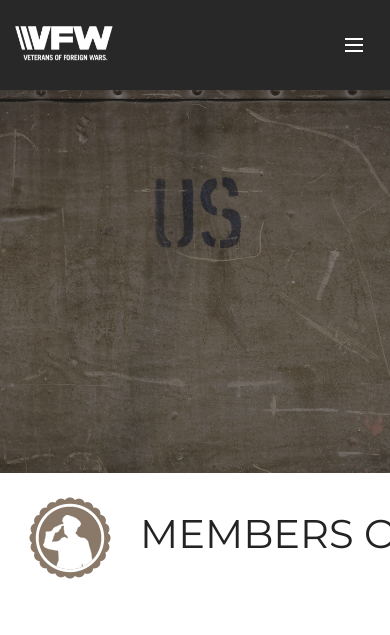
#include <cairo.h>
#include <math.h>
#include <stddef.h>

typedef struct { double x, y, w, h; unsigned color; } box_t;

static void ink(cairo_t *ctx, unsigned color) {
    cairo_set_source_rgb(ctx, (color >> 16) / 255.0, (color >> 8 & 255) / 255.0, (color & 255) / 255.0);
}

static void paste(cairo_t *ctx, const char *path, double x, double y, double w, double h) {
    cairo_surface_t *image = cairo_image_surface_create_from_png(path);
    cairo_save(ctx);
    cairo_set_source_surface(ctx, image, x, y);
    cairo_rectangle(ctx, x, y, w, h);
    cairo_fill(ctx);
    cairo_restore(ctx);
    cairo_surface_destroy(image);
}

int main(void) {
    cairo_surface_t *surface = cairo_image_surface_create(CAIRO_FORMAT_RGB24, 390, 635);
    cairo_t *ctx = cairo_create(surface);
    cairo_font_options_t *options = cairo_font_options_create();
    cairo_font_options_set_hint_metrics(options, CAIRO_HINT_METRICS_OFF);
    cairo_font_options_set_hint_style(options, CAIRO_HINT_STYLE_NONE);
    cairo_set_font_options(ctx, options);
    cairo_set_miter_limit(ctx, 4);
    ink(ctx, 0xFFFFFF);
    cairo_paint(ctx);
    ink(ctx, 0x282828);
    cairo_rectangle(ctx, 0, 0, 390, 90);
    cairo_fill(ctx);
    paste(ctx, "media/1.png", 15, 26, 98, 35);
    {
        static const box_t items[] = {
            {345, 50, 18, 2, 0xFFFFFF},
            {345, 44, 18, 2, 0xFFFFFF},
            {345, 38, 18, 2, 0xFFFFFF},
        };
        for (size_t i = 0; i < sizeof items / sizeof *items; i++) {
            ink(ctx, items[i].color);
            cairo_rectangle(ctx, items[i].x, items[i].y, items[i].w, items[i].h);
            cairo_fill(ctx);
        }
    }
    paste(ctx, "media/2.png", 0, 90, 390, 383);
    paste(ctx, "media/3.png", 29, 497, 82, 82);
    cairo_select_font_face(ctx, "Montserrat", CAIRO_FONT_SLANT_NORMAL, CAIRO_FONT_WEIGHT_NORMAL);
    cairo_set_font_size(ctx, 40);
    ink(ctx, 0x232323);
    cairo_move_to(ctx, 140, 548);
    cairo_show_text(ctx, "MEMBERS O");
    cairo_surface_write_to_png(surface, "image.png");
    cairo_font_options_destroy(options);
    cairo_destroy(ctx);
    cairo_surface_destroy(surface);
    return 0;
}
